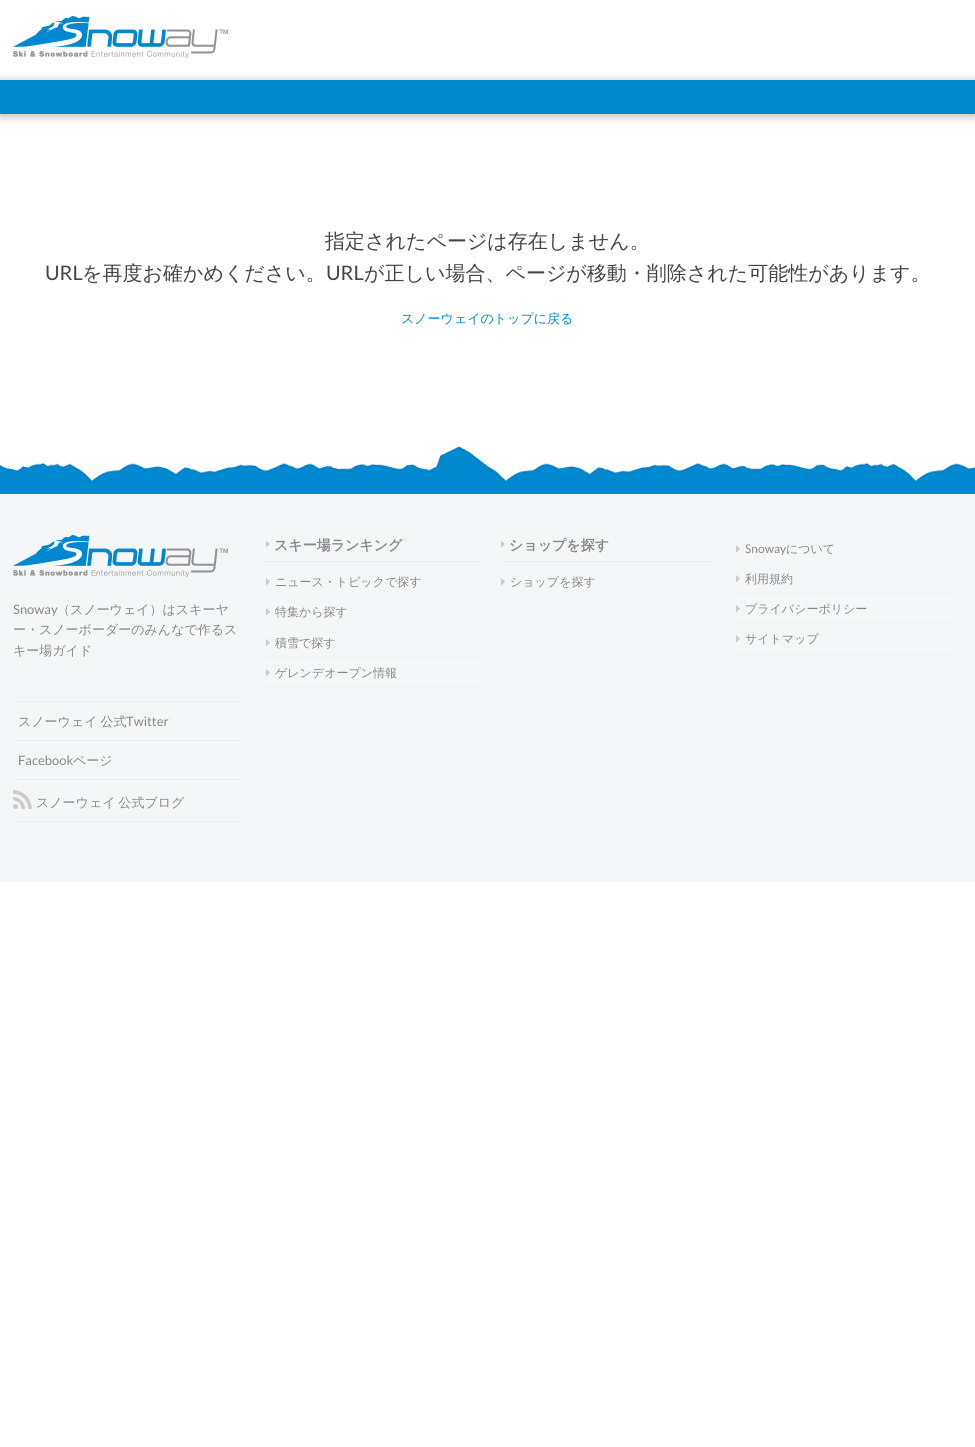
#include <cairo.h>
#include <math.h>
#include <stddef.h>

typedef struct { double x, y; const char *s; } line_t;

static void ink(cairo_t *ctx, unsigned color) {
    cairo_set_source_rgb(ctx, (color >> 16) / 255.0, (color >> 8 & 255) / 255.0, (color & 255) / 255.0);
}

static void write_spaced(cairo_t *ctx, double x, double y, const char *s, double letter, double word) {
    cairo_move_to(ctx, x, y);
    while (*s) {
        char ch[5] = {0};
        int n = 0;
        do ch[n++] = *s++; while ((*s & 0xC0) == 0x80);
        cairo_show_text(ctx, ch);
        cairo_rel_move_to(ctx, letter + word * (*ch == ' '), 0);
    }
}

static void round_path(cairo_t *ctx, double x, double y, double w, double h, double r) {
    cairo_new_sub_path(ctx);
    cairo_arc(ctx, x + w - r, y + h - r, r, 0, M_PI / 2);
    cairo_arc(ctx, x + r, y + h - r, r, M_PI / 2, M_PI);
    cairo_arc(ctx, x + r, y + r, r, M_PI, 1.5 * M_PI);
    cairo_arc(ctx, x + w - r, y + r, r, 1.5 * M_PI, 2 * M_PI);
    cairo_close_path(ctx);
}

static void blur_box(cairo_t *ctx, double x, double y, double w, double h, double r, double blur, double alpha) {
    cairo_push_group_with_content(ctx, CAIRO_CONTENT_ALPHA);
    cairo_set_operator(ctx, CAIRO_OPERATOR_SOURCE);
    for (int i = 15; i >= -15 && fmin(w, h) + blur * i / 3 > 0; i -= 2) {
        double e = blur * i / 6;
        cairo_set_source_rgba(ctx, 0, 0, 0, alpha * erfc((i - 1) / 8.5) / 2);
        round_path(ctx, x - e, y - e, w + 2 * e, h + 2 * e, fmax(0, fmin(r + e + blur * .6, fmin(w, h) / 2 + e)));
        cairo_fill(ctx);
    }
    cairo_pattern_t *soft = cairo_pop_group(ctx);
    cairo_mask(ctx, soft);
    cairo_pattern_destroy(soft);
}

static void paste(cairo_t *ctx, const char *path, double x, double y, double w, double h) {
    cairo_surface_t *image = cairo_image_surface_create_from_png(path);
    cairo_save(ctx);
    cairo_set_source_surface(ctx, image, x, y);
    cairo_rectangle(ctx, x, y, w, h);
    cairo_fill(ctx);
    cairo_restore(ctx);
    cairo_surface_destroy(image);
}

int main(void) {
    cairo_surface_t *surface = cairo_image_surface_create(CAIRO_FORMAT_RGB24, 975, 1447);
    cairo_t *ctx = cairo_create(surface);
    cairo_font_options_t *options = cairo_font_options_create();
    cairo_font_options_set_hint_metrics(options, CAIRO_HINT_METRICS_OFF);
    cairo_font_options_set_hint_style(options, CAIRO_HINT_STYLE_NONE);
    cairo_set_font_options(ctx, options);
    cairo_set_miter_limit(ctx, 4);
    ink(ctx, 0xFFFFFF);
    cairo_paint(ctx);
    paste(ctx, "media/1.png", 13, 16, 215, 42);
    ink(ctx, 0x000000);
    blur_box(ctx, 0, 82, 975, 34, 0, 5, 0.3);
    ink(ctx, 0x0088CF);
    cairo_rectangle(ctx, 0, 80, 975, 34);
    cairo_fill(ctx);
    cairo_select_font_face(ctx, "WenQuanYi Zen Hei Medium", CAIRO_FONT_SLANT_NORMAL, CAIRO_FONT_WEIGHT_NORMAL);
    cairo_set_font_size(ctx, 20);
    ink(ctx, 0x444444);
    cairo_move_to(ctx, 325, 248);
    cairo_show_text(ctx, "指定されたページは存在しません。");
    cairo_select_font_face(ctx, "Lato", CAIRO_FONT_SLANT_NORMAL, CAIRO_FONT_WEIGHT_NORMAL);
    cairo_move_to(ctx, 45, 280);
    cairo_show_text(ctx, "URL");
    cairo_select_font_face(ctx, "WenQuanYi Zen Hei Medium", CAIRO_FONT_SLANT_NORMAL, CAIRO_FONT_WEIGHT_NORMAL);
    cairo_move_to(ctx, 82, 280);
    cairo_show_text(ctx, "を再度お確かめください。");
    cairo_select_font_face(ctx, "Lato", CAIRO_FONT_SLANT_NORMAL, CAIRO_FONT_WEIGHT_NORMAL);
    cairo_move_to(ctx, 326, 280);
    cairo_show_text(ctx, "URL");
    cairo_select_font_face(ctx, "WenQuanYi Zen Hei Medium", CAIRO_FONT_SLANT_NORMAL, CAIRO_FONT_WEIGHT_NORMAL);
    cairo_move_to(ctx, 364, 280);
    cairo_show_text(ctx, "が正しい場合、ページが移動・削除された可能性があります。");
    cairo_set_font_size(ctx, 13);
    ink(ctx, 0x0088CF);
    cairo_move_to(ctx, 401, 323);
    cairo_show_text(ctx, "スノーウェイのトップに戻る");
    paste(ctx, "media/2.png", 0, 446, 975, 48);
    ink(ctx, 0xF5F6F7);
    cairo_rectangle(ctx, 0, 494, 975, 388);
    cairo_fill(ctx);
    paste(ctx, "media/3.png", 13, 535, 215, 42);
    cairo_select_font_face(ctx, "Lato", CAIRO_FONT_SLANT_NORMAL, CAIRO_FONT_WEIGHT_NORMAL);
    ink(ctx, 0x888888);
    cairo_move_to(ctx, 13, 614);
    cairo_show_text(ctx, "Snoway");
    cairo_select_font_face(ctx, "WenQuanYi Zen Hei Medium", CAIRO_FONT_SLANT_NORMAL, CAIRO_FONT_WEIGHT_NORMAL);
    {
        static const line_t items[] = {
            {57, 614, "（スノーウェイ）はスキーヤ"},
            {13, 634, "ー・スノーボーダーのみんなで作るス"},
            {13, 655, "キー場ガイド"},
        };
        for (size_t i = 0; i < sizeof items / sizeof *items; i++) {
            cairo_move_to(ctx, items[i].x, items[i].y);
            cairo_show_text(ctx, items[i].s);
        }
    }
    ink(ctx, 0xEEEEEE);
    cairo_rectangle(ctx, 13, 701, 230, 1);
    cairo_fill(ctx);
    cairo_rectangle(ctx, 13, 740, 230, 1);
    cairo_fill(ctx);
    ink(ctx, 0x888888);
    write_spaced(ctx, 18, 726, "スノーウェイ 公式", 0, -1);
    cairo_select_font_face(ctx, "Lato", CAIRO_FONT_SLANT_NORMAL, CAIRO_FONT_WEIGHT_NORMAL);
    cairo_move_to(ctx, 126, 726);
    cairo_show_text(ctx, "Twitter");
    ink(ctx, 0xEEEEEE);
    cairo_rectangle(ctx, 13, 779, 230, 1);
    cairo_fill(ctx);
    ink(ctx, 0x888888);
    cairo_move_to(ctx, 18, 765);
    cairo_show_text(ctx, "Facebook");
    cairo_select_font_face(ctx, "WenQuanYi Zen Hei Medium", CAIRO_FONT_SLANT_NORMAL, CAIRO_FONT_WEIGHT_NORMAL);
    cairo_move_to(ctx, 73, 765);
    cairo_show_text(ctx, "ページ");
    ink(ctx, 0xEEEEEE);
    cairo_rectangle(ctx, 13, 821, 230, 1);
    cairo_fill(ctx);
    paste(ctx, "media/4.png", 13, 790, 19, 19);
    ink(ctx, 0x888888);
    write_spaced(ctx, 36, 807, "スノーウェイ 公式ブログ", 0, -1);
    ink(ctx, 0xEEEEEE);
    cairo_rectangle(ctx, 263, 561, 220, 1);
    cairo_fill(ctx);
    paste(ctx, "media/5.png", 266, 541, 4, 7);
    cairo_select_font_face(ctx, "WenQuanYi Zen Hei", CAIRO_FONT_SLANT_NORMAL, CAIRO_FONT_WEIGHT_BOLD);
    cairo_set_font_size(ctx, 14);
    ink(ctx, 0x888888);
    cairo_move_to(ctx, 274, 550);
    cairo_show_text(ctx, "スキー場ランキング");
    cairo_new_path(ctx);
    cairo_move_to(ctx, 263, 596.5);
    cairo_line_to(ctx, 483, 596.5);
    ink(ctx, 0xEEEEEE);
    cairo_set_line_width(ctx, 1);
    cairo_set_dash(ctx, (double[]){1, 1}, 2, 0);
    cairo_stroke(ctx);
    paste(ctx, "media/6.png", 266, 578, 4, 7);
    cairo_select_font_face(ctx, "WenQuanYi Zen Hei Medium", CAIRO_FONT_SLANT_NORMAL, CAIRO_FONT_WEIGHT_NORMAL);
    cairo_set_font_size(ctx, 12);
    ink(ctx, 0x888888);
    cairo_move_to(ctx, 275, 586);
    cairo_show_text(ctx, "ニュース・トピックで探す");
    cairo_new_path(ctx);
    cairo_move_to(ctx, 263, 627.5);
    cairo_line_to(ctx, 483, 627.5);
    ink(ctx, 0xEEEEEE);
    cairo_stroke(ctx);
    paste(ctx, "media/6.png", 266, 608, 4, 7);
    ink(ctx, 0x888888);
    cairo_move_to(ctx, 275, 616);
    cairo_show_text(ctx, "特集から探す");
    cairo_new_path(ctx);
    cairo_move_to(ctx, 263, 657.5);
    cairo_line_to(ctx, 483, 657.5);
    ink(ctx, 0xEEEEEE);
    cairo_stroke(ctx);
    paste(ctx, "media/6.png", 266, 639, 4, 7);
    ink(ctx, 0x888888);
    cairo_move_to(ctx, 275, 647);
    cairo_show_text(ctx, "積雪で探す");
    cairo_new_path(ctx);
    cairo_move_to(ctx, 263, 687.5);
    cairo_line_to(ctx, 483, 687.5);
    ink(ctx, 0xEEEEEE);
    cairo_stroke(ctx);
    paste(ctx, "media/6.png", 266, 669, 4, 7);
    ink(ctx, 0x888888);
    cairo_move_to(ctx, 275, 677);
    cairo_show_text(ctx, "ゲレンデオープン情報");
    ink(ctx, 0xEEEEEE);
    cairo_rectangle(ctx, 498, 561, 220, 1);
    cairo_fill(ctx);
    paste(ctx, "media/5.png", 501, 541, 4, 7);
    cairo_select_font_face(ctx, "WenQuanYi Zen Hei", CAIRO_FONT_SLANT_NORMAL, CAIRO_FONT_WEIGHT_BOLD);
    cairo_set_font_size(ctx, 14);
    ink(ctx, 0x888888);
    cairo_move_to(ctx, 509, 550);
    cairo_show_text(ctx, "ショップを探す");
    cairo_new_path(ctx);
    cairo_move_to(ctx, 498, 596.5);
    cairo_line_to(ctx, 718, 596.5);
    ink(ctx, 0xEEEEEE);
    cairo_stroke(ctx);
    paste(ctx, "media/6.png", 501, 578, 4, 7);
    cairo_select_font_face(ctx, "WenQuanYi Zen Hei Medium", CAIRO_FONT_SLANT_NORMAL, CAIRO_FONT_WEIGHT_NORMAL);
    cairo_set_font_size(ctx, 12);
    ink(ctx, 0x888888);
    cairo_move_to(ctx, 510, 586);
    cairo_show_text(ctx, "ショップを探す");
    cairo_new_path(ctx);
    cairo_move_to(ctx, 733, 563.5);
    cairo_line_to(ctx, 953, 563.5);
    ink(ctx, 0xEEEEEE);
    cairo_stroke(ctx);
    paste(ctx, "media/6.png", 736, 545, 4, 7);
    cairo_select_font_face(ctx, "Lato", CAIRO_FONT_SLANT_NORMAL, CAIRO_FONT_WEIGHT_NORMAL);
    ink(ctx, 0x888888);
    cairo_move_to(ctx, 745, 553);
    cairo_show_text(ctx, "Snoway");
    cairo_select_font_face(ctx, "WenQuanYi Zen Hei Medium", CAIRO_FONT_SLANT_NORMAL, CAIRO_FONT_WEIGHT_NORMAL);
    cairo_move_to(ctx, 786, 553);
    cairo_show_text(ctx, "について");
    cairo_new_path(ctx);
    cairo_move_to(ctx, 733, 593.5);
    cairo_line_to(ctx, 953, 593.5);
    ink(ctx, 0xEEEEEE);
    cairo_stroke(ctx);
    paste(ctx, "media/6.png", 736, 575, 4, 7);
    ink(ctx, 0x888888);
    cairo_move_to(ctx, 745, 583);
    cairo_show_text(ctx, "利用規約");
    cairo_new_path(ctx);
    cairo_move_to(ctx, 733, 623.5);
    cairo_line_to(ctx, 953, 623.5);
    ink(ctx, 0xEEEEEE);
    cairo_stroke(ctx);
    paste(ctx, "media/6.png", 736, 605, 4, 7);
    ink(ctx, 0x888888);
    cairo_move_to(ctx, 745, 613);
    cairo_show_text(ctx, "プライバシーポリシー");
    cairo_new_path(ctx);
    cairo_move_to(ctx, 733, 654.5);
    cairo_line_to(ctx, 953, 654.5);
    ink(ctx, 0xEEEEEE);
    cairo_stroke(ctx);
    paste(ctx, "media/6.png", 736, 635, 4, 7);
    ink(ctx, 0x888888);
    cairo_move_to(ctx, 745, 643);
    cairo_show_text(ctx, "サイトマップ");
    cairo_surface_write_to_png(surface, "image.png");
    cairo_font_options_destroy(options);
    cairo_destroy(ctx);
    cairo_surface_destroy(surface);
    return 0;
}
